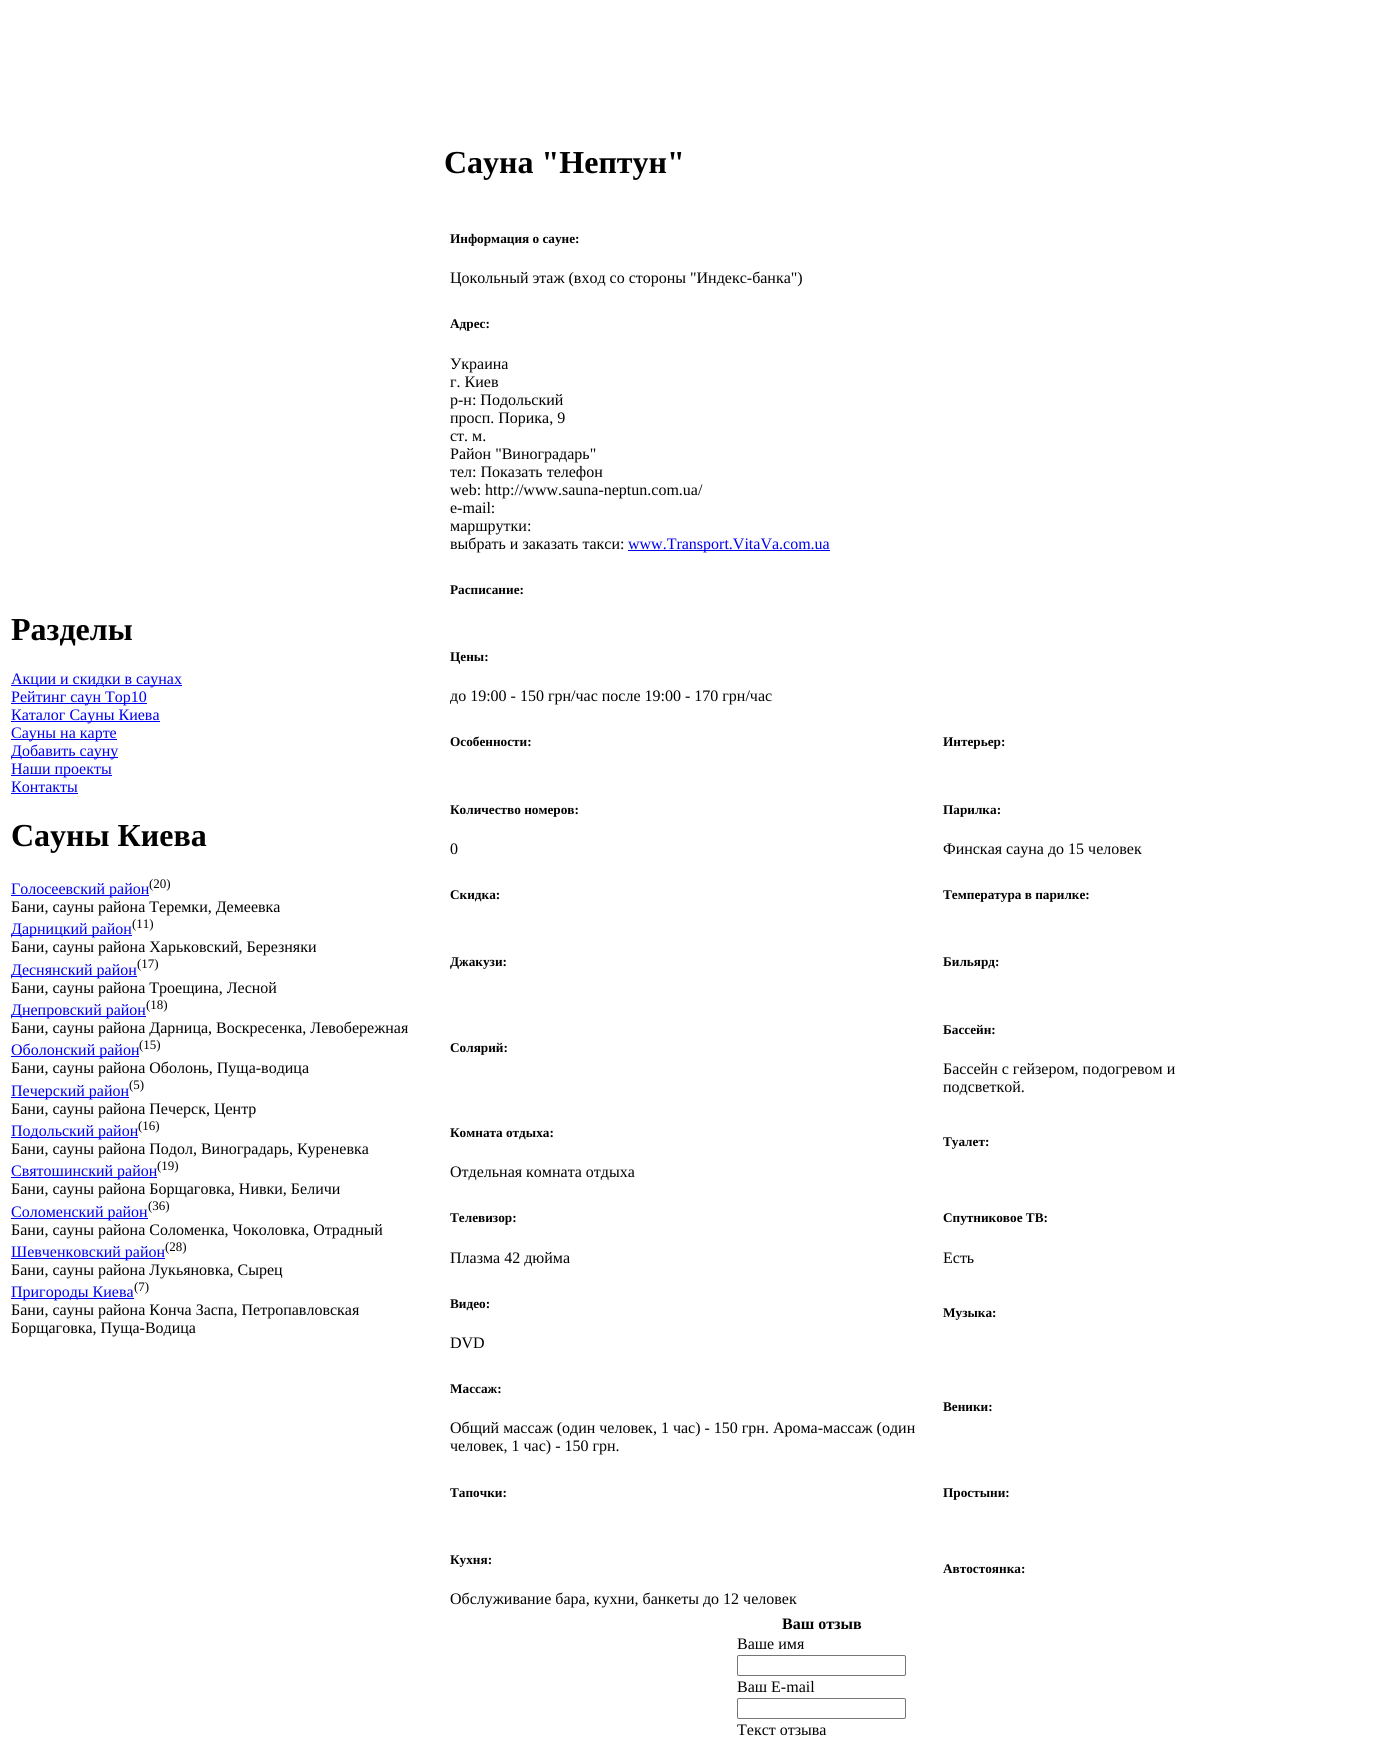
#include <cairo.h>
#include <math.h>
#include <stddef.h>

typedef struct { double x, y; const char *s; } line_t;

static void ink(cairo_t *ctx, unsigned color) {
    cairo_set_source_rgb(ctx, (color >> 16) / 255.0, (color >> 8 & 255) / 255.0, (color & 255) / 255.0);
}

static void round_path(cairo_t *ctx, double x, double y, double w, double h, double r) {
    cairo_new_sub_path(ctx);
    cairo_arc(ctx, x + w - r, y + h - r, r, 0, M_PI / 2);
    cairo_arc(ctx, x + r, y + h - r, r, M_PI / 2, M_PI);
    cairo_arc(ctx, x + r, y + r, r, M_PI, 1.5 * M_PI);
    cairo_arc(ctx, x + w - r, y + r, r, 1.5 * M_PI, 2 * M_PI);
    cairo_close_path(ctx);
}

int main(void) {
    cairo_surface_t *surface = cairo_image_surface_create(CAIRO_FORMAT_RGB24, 1375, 1739);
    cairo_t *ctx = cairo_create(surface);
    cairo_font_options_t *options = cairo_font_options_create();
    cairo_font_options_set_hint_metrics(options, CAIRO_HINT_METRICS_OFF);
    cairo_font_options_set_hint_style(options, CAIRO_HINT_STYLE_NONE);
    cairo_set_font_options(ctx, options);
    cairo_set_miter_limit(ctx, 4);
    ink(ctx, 0xFFFFFF);
    cairo_paint(ctx);
    cairo_select_font_face(ctx, "Liberation Serif", CAIRO_FONT_SLANT_NORMAL, CAIRO_FONT_WEIGHT_BOLD);
    cairo_set_font_size(ctx, 32);
    ink(ctx, 0x000000);
    cairo_move_to(ctx, 11, 640);
    cairo_show_text(ctx, "Разделы");
    ink(ctx, 0x0000EE);
    cairo_rectangle(ctx, 11, 685, 171, 1);
    cairo_fill(ctx);
    cairo_select_font_face(ctx, "Liberation Serif", CAIRO_FONT_SLANT_NORMAL, CAIRO_FONT_WEIGHT_NORMAL);
    cairo_set_font_size(ctx, 16);
    cairo_move_to(ctx, 11, 684);
    cairo_show_text(ctx, "Акции и скидки в саунах");
    cairo_rectangle(ctx, 11, 703, 136, 1);
    cairo_fill(ctx);
    cairo_move_to(ctx, 11, 702);
    cairo_show_text(ctx, "Рейтинг саун Top10");
    cairo_rectangle(ctx, 11, 721, 149, 1);
    cairo_fill(ctx);
    cairo_move_to(ctx, 11, 720);
    cairo_show_text(ctx, "Каталог Сауны Киева");
    cairo_rectangle(ctx, 11, 739, 106, 1);
    cairo_fill(ctx);
    cairo_move_to(ctx, 11, 738);
    cairo_show_text(ctx, "Сауны на карте");
    cairo_rectangle(ctx, 11, 757, 107, 1);
    cairo_fill(ctx);
    cairo_move_to(ctx, 11, 756);
    cairo_show_text(ctx, "Добавить сауну");
    cairo_rectangle(ctx, 11, 775, 101, 1);
    cairo_fill(ctx);
    cairo_move_to(ctx, 11, 774);
    cairo_show_text(ctx, "Наши проекты");
    cairo_move_to(ctx, 11, 792);
    cairo_show_text(ctx, "Контакты");
    cairo_rectangle(ctx, 11, 793, 67, 1);
    cairo_fill(ctx);
    cairo_select_font_face(ctx, "Liberation Serif", CAIRO_FONT_SLANT_NORMAL, CAIRO_FONT_WEIGHT_BOLD);
    cairo_set_font_size(ctx, 32);
    ink(ctx, 0x000000);
    cairo_move_to(ctx, 11, 846);
    cairo_show_text(ctx, "Сауны Киева");
    ink(ctx, 0x0000EE);
    cairo_rectangle(ctx, 11, 895, 138, 1);
    cairo_fill(ctx);
    cairo_select_font_face(ctx, "Liberation Serif", CAIRO_FONT_SLANT_NORMAL, CAIRO_FONT_WEIGHT_NORMAL);
    cairo_set_font_size(ctx, 16);
    cairo_move_to(ctx, 11, 894);
    cairo_show_text(ctx, "Голосеевский район");
    cairo_set_font_size(ctx, 13);
    ink(ctx, 0x000000);
    cairo_move_to(ctx, 149, 888);
    cairo_show_text(ctx, "(20)");
    cairo_set_font_size(ctx, 16);
    cairo_move_to(ctx, 11, 912);
    cairo_show_text(ctx, "Бани, сауны района Теремки, Демеевка");
    ink(ctx, 0x0000EE);
    cairo_rectangle(ctx, 11, 935, 121, 1);
    cairo_fill(ctx);
    cairo_move_to(ctx, 11, 934);
    cairo_show_text(ctx, "Дарницкий район");
    cairo_set_font_size(ctx, 13);
    ink(ctx, 0x000000);
    cairo_move_to(ctx, 132, 928);
    cairo_show_text(ctx, "(11)");
    cairo_set_font_size(ctx, 16);
    cairo_move_to(ctx, 11, 952);
    cairo_show_text(ctx, "Бани, сауны района Харьковский, Березняки");
    ink(ctx, 0x0000EE);
    cairo_rectangle(ctx, 11, 976, 126, 1);
    cairo_fill(ctx);
    cairo_move_to(ctx, 11, 975);
    cairo_show_text(ctx, "Деснянский район");
    cairo_set_font_size(ctx, 13);
    ink(ctx, 0x000000);
    cairo_move_to(ctx, 137, 968);
    cairo_show_text(ctx, "(17)");
    cairo_set_font_size(ctx, 16);
    cairo_move_to(ctx, 11, 993);
    cairo_show_text(ctx, "Бани, сауны района Троещина, Лесной");
    ink(ctx, 0x0000EE);
    cairo_rectangle(ctx, 11, 1016, 135, 1);
    cairo_fill(ctx);
    cairo_move_to(ctx, 11, 1015);
    cairo_show_text(ctx, "Днепровский район");
    cairo_set_font_size(ctx, 13);
    ink(ctx, 0x000000);
    cairo_move_to(ctx, 146, 1009);
    cairo_show_text(ctx, "(18)");
    cairo_set_font_size(ctx, 16);
    cairo_move_to(ctx, 11, 1033);
    cairo_show_text(ctx, "Бани, сауны района Дарница, Воскресенка, Левобережная");
    ink(ctx, 0x0000EE);
    cairo_rectangle(ctx, 11, 1056, 128, 1);
    cairo_fill(ctx);
    cairo_move_to(ctx, 11, 1055);
    cairo_show_text(ctx, "Оболонский район");
    cairo_set_font_size(ctx, 13);
    ink(ctx, 0x000000);
    cairo_move_to(ctx, 139, 1049);
    cairo_show_text(ctx, "(15)");
    cairo_set_font_size(ctx, 16);
    cairo_move_to(ctx, 11, 1073);
    cairo_show_text(ctx, "Бани, сауны района Оболонь, Пуща-водица");
    ink(ctx, 0x0000EE);
    cairo_rectangle(ctx, 11, 1097, 118, 1);
    cairo_fill(ctx);
    cairo_move_to(ctx, 11, 1096);
    cairo_show_text(ctx, "Печерский район");
    cairo_set_font_size(ctx, 13);
    ink(ctx, 0x000000);
    cairo_move_to(ctx, 129, 1089);
    cairo_show_text(ctx, "(5)");
    cairo_set_font_size(ctx, 16);
    cairo_move_to(ctx, 11, 1114);
    cairo_show_text(ctx, "Бани, сауны района Печерск, Центр");
    ink(ctx, 0x0000EE);
    cairo_rectangle(ctx, 11, 1137, 127, 1);
    cairo_fill(ctx);
    cairo_move_to(ctx, 11, 1136);
    cairo_show_text(ctx, "Подольский район");
    cairo_set_font_size(ctx, 13);
    ink(ctx, 0x000000);
    cairo_move_to(ctx, 138, 1130);
    cairo_show_text(ctx, "(16)");
    cairo_set_font_size(ctx, 16);
    cairo_move_to(ctx, 11, 1154);
    cairo_show_text(ctx, "Бани, сауны района Подол, Виноградарь, Куреневка");
    ink(ctx, 0x0000EE);
    cairo_rectangle(ctx, 11, 1177, 146, 1);
    cairo_fill(ctx);
    cairo_move_to(ctx, 11, 1176);
    cairo_show_text(ctx, "Святошинский район");
    cairo_set_font_size(ctx, 13);
    ink(ctx, 0x000000);
    cairo_move_to(ctx, 157, 1170);
    cairo_show_text(ctx, "(19)");
    cairo_set_font_size(ctx, 16);
    cairo_move_to(ctx, 11, 1194);
    cairo_show_text(ctx, "Бани, сауны района Борщаговка, Нивки, Беличи");
    ink(ctx, 0x0000EE);
    cairo_rectangle(ctx, 11, 1218, 137, 1);
    cairo_fill(ctx);
    cairo_move_to(ctx, 11, 1217);
    cairo_show_text(ctx, "Соломенский район");
    cairo_set_font_size(ctx, 13);
    ink(ctx, 0x000000);
    cairo_move_to(ctx, 148, 1210);
    cairo_show_text(ctx, "(36)");
    cairo_set_font_size(ctx, 16);
    cairo_move_to(ctx, 11, 1235);
    cairo_show_text(ctx, "Бани, сауны района Соломенка, Чоколовка, Отрадный");
    ink(ctx, 0x0000EE);
    cairo_rectangle(ctx, 11, 1258, 154, 1);
    cairo_fill(ctx);
    cairo_move_to(ctx, 11, 1257);
    cairo_show_text(ctx, "Шевченковский район");
    cairo_set_font_size(ctx, 13);
    ink(ctx, 0x000000);
    cairo_move_to(ctx, 165, 1251);
    cairo_show_text(ctx, "(28)");
    cairo_set_font_size(ctx, 16);
    cairo_move_to(ctx, 11, 1275);
    cairo_show_text(ctx, "Бани, сауны района Лукьяновка, Сырец");
    ink(ctx, 0x0000EE);
    cairo_rectangle(ctx, 11, 1298, 123, 1);
    cairo_fill(ctx);
    cairo_move_to(ctx, 11, 1297);
    cairo_show_text(ctx, "Пригороды Киева");
    cairo_set_font_size(ctx, 13);
    ink(ctx, 0x000000);
    cairo_move_to(ctx, 134, 1291);
    cairo_show_text(ctx, "(7)");
    cairo_set_font_size(ctx, 16);
    cairo_move_to(ctx, 11, 1315);
    cairo_show_text(ctx, "Бани, сауны района Конча Заспа, Петропавловская");
    cairo_move_to(ctx, 11, 1333);
    cairo_show_text(ctx, "Борщаговка, Пуща-Водица");
    cairo_select_font_face(ctx, "Liberation Serif", CAIRO_FONT_SLANT_NORMAL, CAIRO_FONT_WEIGHT_BOLD);
    cairo_set_font_size(ctx, 32);
    cairo_move_to(ctx, 444, 173);
    cairo_show_text(ctx, "Сауна \"Нептун\"");
    cairo_set_font_size(ctx, 13.25);
    cairo_move_to(ctx, 450, 243);
    cairo_show_text(ctx, "Информация о сауне:");
    cairo_select_font_face(ctx, "Liberation Serif", CAIRO_FONT_SLANT_NORMAL, CAIRO_FONT_WEIGHT_NORMAL);
    cairo_set_font_size(ctx, 16);
    cairo_move_to(ctx, 450, 283);
    cairo_show_text(ctx, "Цокольный этаж (вход со стороны \"Индекс-банка\")");
    cairo_select_font_face(ctx, "Liberation Serif", CAIRO_FONT_SLANT_NORMAL, CAIRO_FONT_WEIGHT_BOLD);
    cairo_set_font_size(ctx, 13.25);
    cairo_move_to(ctx, 450, 328);
    cairo_show_text(ctx, "Адрес:");
    cairo_select_font_face(ctx, "Liberation Serif", CAIRO_FONT_SLANT_NORMAL, CAIRO_FONT_WEIGHT_NORMAL);
    cairo_set_font_size(ctx, 16);
    {
        static const line_t items[] = {
            {450, 369, "Украина"},
            {450, 387, "г. Киев"},
            {450, 405, "р-н: Подольский"},
            {450, 423, "просп. Порика, 9"},
            {450, 441, "ст. м."},
            {450, 459, "Район \"Виноградарь\""},
            {450, 477, "тел: Показать телефон"},
            {450, 495, "web: http://www.sauna-neptun.com.ua/"},
            {450, 513, "e-mail:"},
            {450, 531, "маршрутки:"},
            {450, 549, "выбрать и заказать такси:"},
        };
        for (size_t i = 0; i < sizeof items / sizeof *items; i++) {
            cairo_move_to(ctx, items[i].x, items[i].y);
            cairo_show_text(ctx, items[i].s);
        }
    }
    ink(ctx, 0x0000EE);
    cairo_rectangle(ctx, 628, 550, 202, 1);
    cairo_fill(ctx);
    cairo_move_to(ctx, 628, 549);
    cairo_show_text(ctx, "www.Transport.VitaVa.com.ua");
    cairo_select_font_face(ctx, "Liberation Serif", CAIRO_FONT_SLANT_NORMAL, CAIRO_FONT_WEIGHT_BOLD);
    cairo_set_font_size(ctx, 13.25);
    ink(ctx, 0x000000);
    cairo_move_to(ctx, 450, 594);
    cairo_show_text(ctx, "Расписание:");
    cairo_move_to(ctx, 450, 661);
    cairo_show_text(ctx, "Цены:");
    cairo_select_font_face(ctx, "Liberation Serif", CAIRO_FONT_SLANT_NORMAL, CAIRO_FONT_WEIGHT_NORMAL);
    cairo_set_font_size(ctx, 16);
    cairo_move_to(ctx, 450, 701);
    cairo_show_text(ctx, "до 19:00 - 150 грн/час после 19:00 - 170 грн/час");
    cairo_select_font_face(ctx, "Liberation Serif", CAIRO_FONT_SLANT_NORMAL, CAIRO_FONT_WEIGHT_BOLD);
    cairo_set_font_size(ctx, 13.25);
    {
        static const line_t items[] = {
            {450, 746, "Особенности:"},
            {943, 746, "Интерьер:"},
            {450, 814, "Количество номеров:"},
        };
        for (size_t i = 0; i < sizeof items / sizeof *items; i++) {
            cairo_move_to(ctx, items[i].x, items[i].y);
            cairo_show_text(ctx, items[i].s);
        }
    }
    cairo_select_font_face(ctx, "Liberation Serif", CAIRO_FONT_SLANT_NORMAL, CAIRO_FONT_WEIGHT_NORMAL);
    cairo_set_font_size(ctx, 16);
    cairo_move_to(ctx, 450, 854);
    cairo_show_text(ctx, "0");
    cairo_select_font_face(ctx, "Liberation Serif", CAIRO_FONT_SLANT_NORMAL, CAIRO_FONT_WEIGHT_BOLD);
    cairo_set_font_size(ctx, 13.25);
    cairo_move_to(ctx, 943, 814);
    cairo_show_text(ctx, "Парилка:");
    cairo_select_font_face(ctx, "Liberation Serif", CAIRO_FONT_SLANT_NORMAL, CAIRO_FONT_WEIGHT_NORMAL);
    cairo_set_font_size(ctx, 16);
    cairo_move_to(ctx, 943, 854);
    cairo_show_text(ctx, "Финская сауна до 15 человек");
    cairo_select_font_face(ctx, "Liberation Serif", CAIRO_FONT_SLANT_NORMAL, CAIRO_FONT_WEIGHT_BOLD);
    cairo_set_font_size(ctx, 13.25);
    {
        static const line_t items[] = {
            {450, 899, "Скидка:"},
            {943, 899, "Температура в парилке:"},
            {450, 966, "Джакузи:"},
            {943, 966, "Бильярд:"},
            {450, 1052, "Солярий:"},
            {943, 1034, "Бассейн:"},
        };
        for (size_t i = 0; i < sizeof items / sizeof *items; i++) {
            cairo_move_to(ctx, items[i].x, items[i].y);
            cairo_show_text(ctx, items[i].s);
        }
    }
    cairo_select_font_face(ctx, "Liberation Serif", CAIRO_FONT_SLANT_NORMAL, CAIRO_FONT_WEIGHT_NORMAL);
    cairo_set_font_size(ctx, 16);
    cairo_move_to(ctx, 943, 1074);
    cairo_show_text(ctx, "Бассейн с гейзером, подогревом и");
    cairo_move_to(ctx, 943, 1092);
    cairo_show_text(ctx, "подсветкой.");
    cairo_select_font_face(ctx, "Liberation Serif", CAIRO_FONT_SLANT_NORMAL, CAIRO_FONT_WEIGHT_BOLD);
    cairo_set_font_size(ctx, 13.25);
    cairo_move_to(ctx, 450, 1137);
    cairo_show_text(ctx, "Комната отдыха:");
    cairo_select_font_face(ctx, "Liberation Serif", CAIRO_FONT_SLANT_NORMAL, CAIRO_FONT_WEIGHT_NORMAL);
    cairo_set_font_size(ctx, 16);
    cairo_move_to(ctx, 450, 1177);
    cairo_show_text(ctx, "Отдельная комната отдыха");
    cairo_select_font_face(ctx, "Liberation Serif", CAIRO_FONT_SLANT_NORMAL, CAIRO_FONT_WEIGHT_BOLD);
    cairo_set_font_size(ctx, 13.25);
    cairo_move_to(ctx, 943, 1146);
    cairo_show_text(ctx, "Туалет:");
    cairo_move_to(ctx, 450, 1222);
    cairo_show_text(ctx, "Телевизор:");
    cairo_select_font_face(ctx, "Liberation Serif", CAIRO_FONT_SLANT_NORMAL, CAIRO_FONT_WEIGHT_NORMAL);
    cairo_set_font_size(ctx, 16);
    cairo_move_to(ctx, 450, 1263);
    cairo_show_text(ctx, "Плазма 42 дюйма");
    cairo_select_font_face(ctx, "Liberation Serif", CAIRO_FONT_SLANT_NORMAL, CAIRO_FONT_WEIGHT_BOLD);
    cairo_set_font_size(ctx, 13.25);
    cairo_move_to(ctx, 943, 1222);
    cairo_show_text(ctx, "Спутниковое ТВ:");
    cairo_select_font_face(ctx, "Liberation Serif", CAIRO_FONT_SLANT_NORMAL, CAIRO_FONT_WEIGHT_NORMAL);
    cairo_set_font_size(ctx, 16);
    cairo_move_to(ctx, 943, 1263);
    cairo_show_text(ctx, "Есть");
    cairo_select_font_face(ctx, "Liberation Serif", CAIRO_FONT_SLANT_NORMAL, CAIRO_FONT_WEIGHT_BOLD);
    cairo_set_font_size(ctx, 13.25);
    cairo_move_to(ctx, 450, 1308);
    cairo_show_text(ctx, "Видео:");
    cairo_select_font_face(ctx, "Liberation Serif", CAIRO_FONT_SLANT_NORMAL, CAIRO_FONT_WEIGHT_NORMAL);
    cairo_set_font_size(ctx, 16);
    cairo_move_to(ctx, 450, 1348);
    cairo_show_text(ctx, "DVD");
    cairo_select_font_face(ctx, "Liberation Serif", CAIRO_FONT_SLANT_NORMAL, CAIRO_FONT_WEIGHT_BOLD);
    cairo_set_font_size(ctx, 13.25);
    cairo_move_to(ctx, 943, 1317);
    cairo_show_text(ctx, "Музыка:");
    cairo_move_to(ctx, 450, 1393);
    cairo_show_text(ctx, "Массаж:");
    cairo_select_font_face(ctx, "Liberation Serif", CAIRO_FONT_SLANT_NORMAL, CAIRO_FONT_WEIGHT_NORMAL);
    cairo_set_font_size(ctx, 16);
    cairo_move_to(ctx, 450, 1433);
    cairo_show_text(ctx, "Общий массаж (один человек, 1 час) - 150 грн. Арома-массаж (один");
    cairo_move_to(ctx, 450, 1451);
    cairo_show_text(ctx, "человек, 1 час) - 150 грн.");
    cairo_select_font_face(ctx, "Liberation Serif", CAIRO_FONT_SLANT_NORMAL, CAIRO_FONT_WEIGHT_BOLD);
    cairo_set_font_size(ctx, 13.25);
    {
        static const line_t items[] = {
            {943, 1411, "Веники:"},
            {450, 1497, "Тапочки:"},
            {943, 1497, "Простыни:"},
            {450, 1564, "Кухня:"},
        };
        for (size_t i = 0; i < sizeof items / sizeof *items; i++) {
            cairo_move_to(ctx, items[i].x, items[i].y);
            cairo_show_text(ctx, items[i].s);
        }
    }
    cairo_select_font_face(ctx, "Liberation Serif", CAIRO_FONT_SLANT_NORMAL, CAIRO_FONT_WEIGHT_NORMAL);
    cairo_set_font_size(ctx, 16);
    cairo_move_to(ctx, 450, 1604);
    cairo_show_text(ctx, "Обслуживание бара, кухни, банкеты до 12 человек");
    cairo_select_font_face(ctx, "Liberation Serif", CAIRO_FONT_SLANT_NORMAL, CAIRO_FONT_WEIGHT_BOLD);
    cairo_set_font_size(ctx, 13.25);
    cairo_move_to(ctx, 943, 1573);
    cairo_show_text(ctx, "Автостоянка:");
    cairo_set_font_size(ctx, 16);
    cairo_move_to(ctx, 782, 1629);
    cairo_show_text(ctx, "Ваш отзыв");
    cairo_select_font_face(ctx, "Liberation Serif", CAIRO_FONT_SLANT_NORMAL, CAIRO_FONT_WEIGHT_NORMAL);
    cairo_move_to(ctx, 737, 1649);
    cairo_show_text(ctx, "Ваше имя");
    round_path(ctx, 737.5, 1655.5, 168, 20, 1.5);
    ink(ctx, 0x767676);
    cairo_set_line_width(ctx, 1);
    cairo_stroke(ctx);
    ink(ctx, 0x000000);
    cairo_move_to(ctx, 737, 1692);
    cairo_show_text(ctx, "Ваш E-mail");
    round_path(ctx, 737.5, 1698.5, 168, 20, 1.5);
    ink(ctx, 0x767676);
    cairo_stroke(ctx);
    ink(ctx, 0x000000);
    cairo_move_to(ctx, 737, 1735);
    cairo_show_text(ctx, "Текст отзыва");
    cairo_surface_write_to_png(surface, "image.png");
    cairo_font_options_destroy(options);
    cairo_destroy(ctx);
    cairo_surface_destroy(surface);
    return 0;
}
